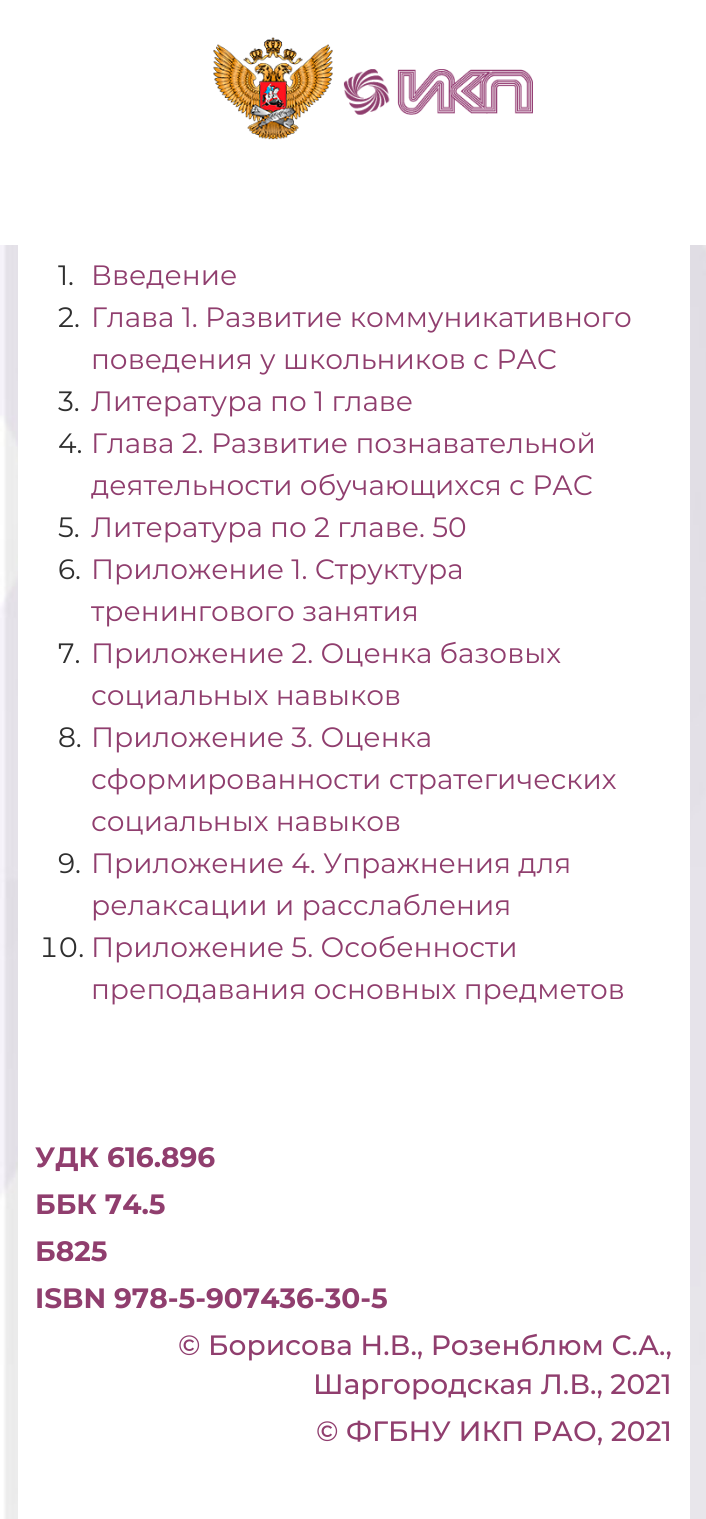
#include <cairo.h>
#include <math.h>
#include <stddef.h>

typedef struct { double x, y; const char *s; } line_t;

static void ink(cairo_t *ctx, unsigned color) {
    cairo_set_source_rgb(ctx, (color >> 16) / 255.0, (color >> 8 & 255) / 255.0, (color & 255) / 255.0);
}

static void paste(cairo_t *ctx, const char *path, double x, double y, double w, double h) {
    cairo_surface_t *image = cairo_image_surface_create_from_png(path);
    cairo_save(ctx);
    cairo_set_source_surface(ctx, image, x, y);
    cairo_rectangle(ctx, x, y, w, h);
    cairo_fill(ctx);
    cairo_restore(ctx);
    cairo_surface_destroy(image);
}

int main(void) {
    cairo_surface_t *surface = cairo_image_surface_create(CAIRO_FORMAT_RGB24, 706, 1519);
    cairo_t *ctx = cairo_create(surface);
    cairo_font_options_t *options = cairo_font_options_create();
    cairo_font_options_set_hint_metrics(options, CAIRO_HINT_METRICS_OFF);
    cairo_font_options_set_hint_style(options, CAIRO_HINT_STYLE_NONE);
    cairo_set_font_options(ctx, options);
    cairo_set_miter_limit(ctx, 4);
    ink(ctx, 0xFFFFFF);
    cairo_paint(ctx);
    paste(ctx, "media/1.png", 213, 37, 320, 103);
    paste(ctx, "media/2.png", 0, 245, 706, 1274);
    ink(ctx, 0xFFFFFF);
    cairo_rectangle(ctx, 18, 245, 672, 1274);
    cairo_fill(ctx);
    cairo_select_font_face(ctx, "Montserrat Thin", CAIRO_FONT_SLANT_NORMAL, CAIRO_FONT_WEIGHT_NORMAL);
    cairo_set_font_size(ctx, 28);
    ink(ctx, 0x2F2F2F);
    cairo_move_to(ctx, 58, 285);
    cairo_show_text(ctx, "1.");
    ink(ctx, 0x903E6E);
    cairo_move_to(ctx, 91, 285);
    cairo_show_text(ctx, "Введение");
    ink(ctx, 0x2F2F2F);
    cairo_move_to(ctx, 58, 327);
    cairo_show_text(ctx, "2.");
    ink(ctx, 0x903E6E);
    cairo_move_to(ctx, 91, 327);
    cairo_show_text(ctx, "Глава 1. Развитие коммуникативного");
    cairo_move_to(ctx, 91, 369);
    cairo_show_text(ctx, "поведения у школьников с РАС");
    ink(ctx, 0x2F2F2F);
    cairo_move_to(ctx, 58, 411);
    cairo_show_text(ctx, "3.");
    ink(ctx, 0x903E6E);
    cairo_move_to(ctx, 91, 411);
    cairo_show_text(ctx, "Литература по 1 главе");
    ink(ctx, 0x2F2F2F);
    cairo_move_to(ctx, 58, 453);
    cairo_show_text(ctx, "4.");
    ink(ctx, 0x903E6E);
    cairo_move_to(ctx, 91, 453);
    cairo_show_text(ctx, "Глава 2. Развитие познавательной");
    cairo_move_to(ctx, 91, 495);
    cairo_show_text(ctx, "деятельности обучающихся с РАС");
    ink(ctx, 0x2F2F2F);
    cairo_move_to(ctx, 58, 537);
    cairo_show_text(ctx, "5.");
    ink(ctx, 0x903E6E);
    cairo_move_to(ctx, 91, 537);
    cairo_show_text(ctx, "Литература по 2 главе. 50");
    ink(ctx, 0x2F2F2F);
    cairo_move_to(ctx, 58, 579);
    cairo_show_text(ctx, "6.");
    ink(ctx, 0x903E6E);
    cairo_move_to(ctx, 91, 579);
    cairo_show_text(ctx, "Приложение 1. Структура");
    cairo_move_to(ctx, 91, 621);
    cairo_show_text(ctx, "тренингового занятия");
    ink(ctx, 0x2F2F2F);
    cairo_move_to(ctx, 58, 663);
    cairo_show_text(ctx, "7.");
    ink(ctx, 0x903E6E);
    cairo_move_to(ctx, 91, 663);
    cairo_show_text(ctx, "Приложение 2. Оценка базовых");
    cairo_move_to(ctx, 91, 705);
    cairo_show_text(ctx, "социальных навыков");
    ink(ctx, 0x2F2F2F);
    cairo_move_to(ctx, 58, 747);
    cairo_show_text(ctx, "8.");
    ink(ctx, 0x903E6E);
    {
        static const line_t items[] = {
            {91, 747, "Приложение 3. Оценка"},
            {91, 789, "сформированности стратегических"},
            {91, 831, "социальных навыков"},
        };
        for (size_t i = 0; i < sizeof items / sizeof *items; i++) {
            cairo_move_to(ctx, items[i].x, items[i].y);
            cairo_show_text(ctx, items[i].s);
        }
    }
    ink(ctx, 0x2F2F2F);
    cairo_move_to(ctx, 58, 873);
    cairo_show_text(ctx, "9.");
    ink(ctx, 0x903E6E);
    cairo_move_to(ctx, 91, 873);
    cairo_show_text(ctx, "Приложение 4. Упражнения для");
    cairo_move_to(ctx, 91, 915);
    cairo_show_text(ctx, "релаксации и расслабления");
    cairo_select_font_face(ctx, "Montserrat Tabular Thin", CAIRO_FONT_SLANT_NORMAL, CAIRO_FONT_WEIGHT_NORMAL);
    ink(ctx, 0x2F2F2F);
    cairo_move_to(ctx, 39, 957);
    cairo_show_text(ctx, "10.");
    cairo_select_font_face(ctx, "Montserrat Thin", CAIRO_FONT_SLANT_NORMAL, CAIRO_FONT_WEIGHT_NORMAL);
    ink(ctx, 0x903E6E);
    cairo_move_to(ctx, 91, 957);
    cairo_show_text(ctx, "Приложение 5. Особенности");
    cairo_move_to(ctx, 91, 999);
    cairo_show_text(ctx, "преподавания основных предметов");
    cairo_select_font_face(ctx, "Montserrat", CAIRO_FONT_SLANT_NORMAL, CAIRO_FONT_WEIGHT_BOLD);
    {
        static const line_t items[] = {
            {35, 1167, "УДК 616.896"},
            {35, 1214, "ББК 74.5"},
            {35, 1261, "Б825"},
            {35, 1308, "ISBN 978-5-907436-30-5"},
        };
        for (size_t i = 0; i < sizeof items / sizeof *items; i++) {
            cairo_move_to(ctx, items[i].x, items[i].y);
            cairo_show_text(ctx, items[i].s);
        }
    }
    cairo_select_font_face(ctx, "Montserrat Medium", CAIRO_FONT_SLANT_NORMAL, CAIRO_FONT_WEIGHT_NORMAL);
    {
        static const line_t items[] = {
            {178, 1355, "© Борисова Н.В., Розенблюм С.А.,"},
            {313, 1394, "Шаргородская Л.В., 2021"},
            {316, 1441, "© ФГБНУ ИКП РАО, 2021"},
        };
        for (size_t i = 0; i < sizeof items / sizeof *items; i++) {
            cairo_move_to(ctx, items[i].x, items[i].y);
            cairo_show_text(ctx, items[i].s);
        }
    }
    cairo_surface_write_to_png(surface, "image.png");
    cairo_font_options_destroy(options);
    cairo_destroy(ctx);
    cairo_surface_destroy(surface);
    return 0;
}
